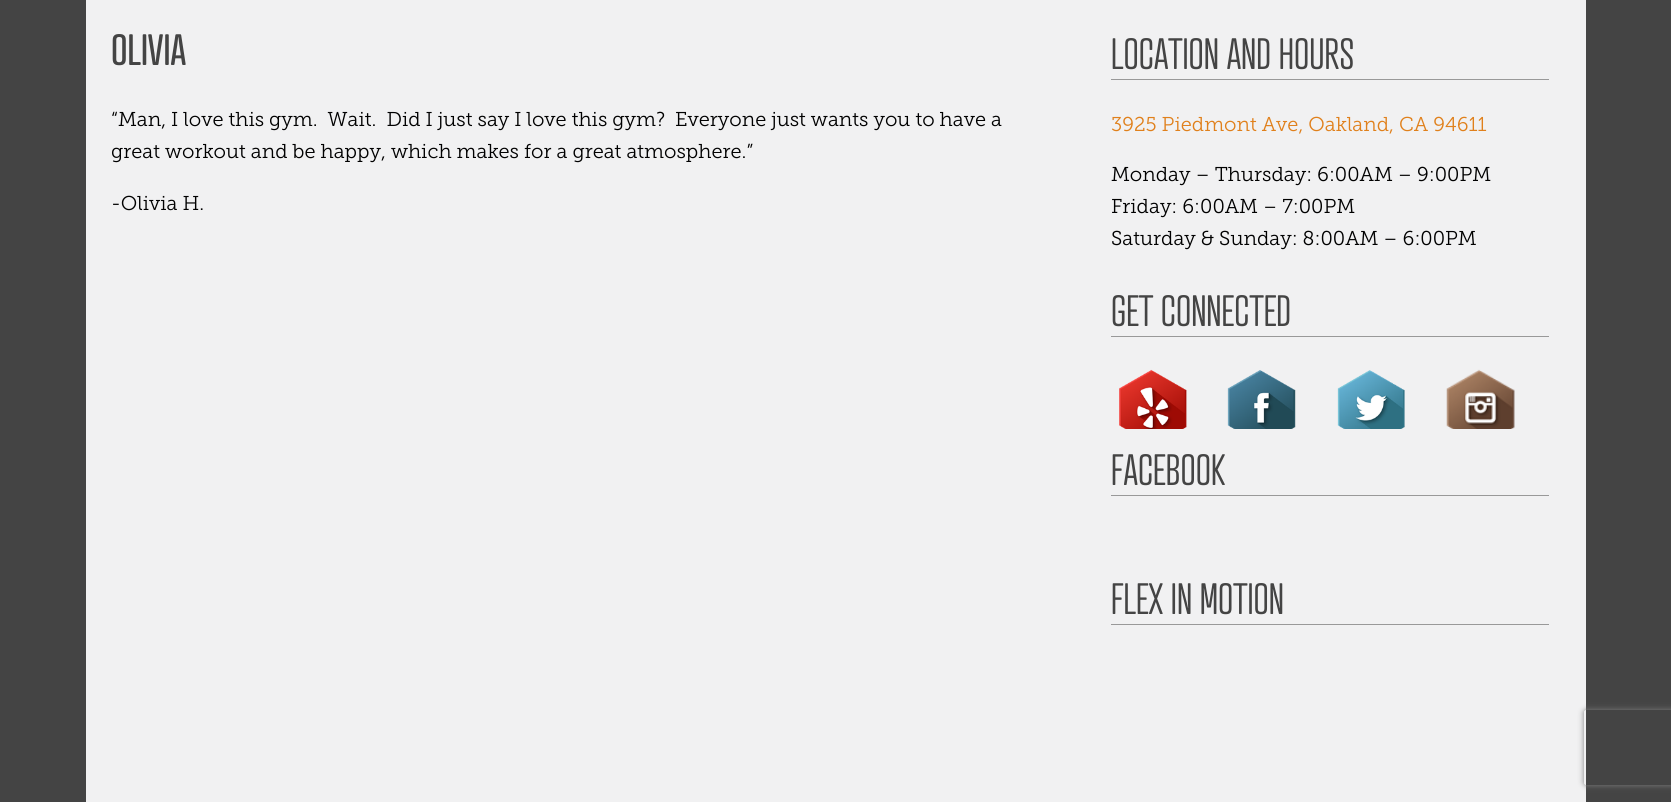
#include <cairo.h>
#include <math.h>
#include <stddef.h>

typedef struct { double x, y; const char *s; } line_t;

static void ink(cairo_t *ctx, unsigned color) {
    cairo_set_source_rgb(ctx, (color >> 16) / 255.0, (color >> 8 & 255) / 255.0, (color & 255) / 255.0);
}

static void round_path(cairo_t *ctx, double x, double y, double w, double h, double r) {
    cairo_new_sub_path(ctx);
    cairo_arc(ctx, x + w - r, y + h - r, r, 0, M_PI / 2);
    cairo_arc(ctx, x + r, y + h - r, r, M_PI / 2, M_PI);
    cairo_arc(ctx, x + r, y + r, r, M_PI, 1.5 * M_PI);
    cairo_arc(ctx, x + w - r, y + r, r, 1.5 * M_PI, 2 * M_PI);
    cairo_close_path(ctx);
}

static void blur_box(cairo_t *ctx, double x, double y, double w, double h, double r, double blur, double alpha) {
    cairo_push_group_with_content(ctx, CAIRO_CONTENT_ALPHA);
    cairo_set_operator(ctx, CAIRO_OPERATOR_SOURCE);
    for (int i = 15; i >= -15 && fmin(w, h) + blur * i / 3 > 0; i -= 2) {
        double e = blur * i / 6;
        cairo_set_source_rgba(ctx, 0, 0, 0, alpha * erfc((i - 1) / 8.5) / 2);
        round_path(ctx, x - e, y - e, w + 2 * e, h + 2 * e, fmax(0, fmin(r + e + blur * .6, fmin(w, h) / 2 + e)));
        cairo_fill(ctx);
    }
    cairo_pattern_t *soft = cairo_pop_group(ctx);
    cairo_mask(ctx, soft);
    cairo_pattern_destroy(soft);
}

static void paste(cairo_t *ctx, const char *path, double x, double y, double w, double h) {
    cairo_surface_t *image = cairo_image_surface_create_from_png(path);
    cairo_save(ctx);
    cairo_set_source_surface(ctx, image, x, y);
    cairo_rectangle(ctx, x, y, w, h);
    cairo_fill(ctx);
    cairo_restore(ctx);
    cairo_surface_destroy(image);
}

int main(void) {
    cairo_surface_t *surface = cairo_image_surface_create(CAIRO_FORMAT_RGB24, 1671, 802);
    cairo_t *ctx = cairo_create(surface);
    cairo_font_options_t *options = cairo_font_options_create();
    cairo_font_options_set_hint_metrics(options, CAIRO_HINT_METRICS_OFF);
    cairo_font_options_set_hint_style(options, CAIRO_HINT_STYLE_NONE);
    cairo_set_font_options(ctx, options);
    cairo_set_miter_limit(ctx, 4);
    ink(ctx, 0x444444);
    cairo_paint(ctx);
    ink(ctx, 0xF1F1F2);
    cairo_rectangle(ctx, 86, 0, 1500, 802);
    cairo_fill(ctx);
    cairo_select_font_face(ctx, "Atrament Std", CAIRO_FONT_SLANT_NORMAL, CAIRO_FONT_WEIGHT_NORMAL);
    cairo_set_font_size(ctx, 42.5);
    ink(ctx, 0x444444);
    cairo_move_to(ctx, 111, 65);
    cairo_show_text(ctx, "OLIVIA");
    cairo_select_font_face(ctx, "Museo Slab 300 Light", CAIRO_FONT_SLANT_NORMAL, CAIRO_FONT_WEIGHT_NORMAL);
    cairo_set_font_size(ctx, 20);
    ink(ctx, 0x000000);
    {
        static const line_t items[] = {
            {111, 126, "“Man, I love this gym.  Wait.  Did I just say I love this gym?  Everyone just wants you to have a"},
            {111, 158, "great workout and be happy, which makes for a great atmosphere.”"},
            {111, 210, "-Olivia H."},
        };
        for (size_t i = 0; i < sizeof items / sizeof *items; i++) {
            cairo_move_to(ctx, items[i].x, items[i].y);
            cairo_show_text(ctx, items[i].s);
        }
    }
    ink(ctx, 0x999999);
    cairo_rectangle(ctx, 1111, 79, 438, 1);
    cairo_fill(ctx);
    cairo_select_font_face(ctx, "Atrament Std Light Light", CAIRO_FONT_SLANT_NORMAL, CAIRO_FONT_WEIGHT_NORMAL);
    cairo_set_font_size(ctx, 42.5);
    ink(ctx, 0x444444);
    cairo_move_to(ctx, 1111, 69);
    cairo_show_text(ctx, "LOCATION AND HOURS");
    cairo_select_font_face(ctx, "Museo Slab 300 Light", CAIRO_FONT_SLANT_NORMAL, CAIRO_FONT_WEIGHT_NORMAL);
    cairo_set_font_size(ctx, 20);
    ink(ctx, 0xE0801B);
    cairo_move_to(ctx, 1111, 131);
    cairo_show_text(ctx, "3925 Piedmont Ave, Oakland, CA 94611");
    ink(ctx, 0x000000);
    {
        static const line_t items[] = {
            {1111, 181, "Monday – Thursday: 6:00AM – 9:00PM"},
            {1111, 213, "Friday: 6:00AM – 7:00PM"},
            {1111, 245, "Saturday & Sunday: 8:00AM – 6:00PM"},
        };
        for (size_t i = 0; i < sizeof items / sizeof *items; i++) {
            cairo_move_to(ctx, items[i].x, items[i].y);
            cairo_show_text(ctx, items[i].s);
        }
    }
    ink(ctx, 0x999999);
    cairo_rectangle(ctx, 1111, 336, 438, 1);
    cairo_fill(ctx);
    cairo_select_font_face(ctx, "Atrament Std Light Light", CAIRO_FONT_SLANT_NORMAL, CAIRO_FONT_WEIGHT_NORMAL);
    cairo_set_font_size(ctx, 42.5);
    ink(ctx, 0x444444);
    cairo_move_to(ctx, 1111, 326);
    cairo_show_text(ctx, "GET CONNECTED");
    paste(ctx, "media/1.png", 1119, 369, 68, 60);
    paste(ctx, "media/2.png", 1227, 370, 69, 59);
    paste(ctx, "media/3.png", 1337, 370, 68, 59);
    paste(ctx, "media/4.png", 1446, 369, 69, 60);
    ink(ctx, 0x999999);
    cairo_rectangle(ctx, 1111, 495, 438, 1);
    cairo_fill(ctx);
    ink(ctx, 0x444444);
    cairo_move_to(ctx, 1111, 485);
    cairo_show_text(ctx, "FACEBOOK");
    ink(ctx, 0x999999);
    cairo_rectangle(ctx, 1111, 624, 438, 1);
    cairo_fill(ctx);
    ink(ctx, 0x444444);
    cairo_move_to(ctx, 1111, 614);
    cairo_show_text(ctx, "FLEX IN MOTION");
    cairo_save(ctx);
    cairo_set_fill_rule(ctx, CAIRO_FILL_RULE_EVEN_ODD);
    cairo_new_path(ctx);
    cairo_move_to(ctx, 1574, 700);
    cairo_line_to(ctx, 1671, 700);
    cairo_line_to(ctx, 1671, 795);
    cairo_line_to(ctx, 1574, 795);
    cairo_close_path(ctx);
    cairo_move_to(ctx, 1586.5, 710);
    cairo_line_to(ctx, 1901.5, 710);
    cairo_curve_to(ctx, 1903, 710, 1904, 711, 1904, 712.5);
    cairo_line_to(ctx, 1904, 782.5);
    cairo_curve_to(ctx, 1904, 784, 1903, 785, 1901.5, 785);
    cairo_line_to(ctx, 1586.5, 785);
    cairo_curve_to(ctx, 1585, 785, 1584, 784, 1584, 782.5);
    cairo_line_to(ctx, 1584, 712.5);
    cairo_curve_to(ctx, 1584, 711, 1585, 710, 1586.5, 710);
    cairo_close_path(ctx);
    cairo_clip(ctx);
    ink(ctx, 0x808080);
    blur_box(ctx, 1584, 710, 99, 75, 2.5, 3, 1);
    cairo_restore(ctx);
    cairo_surface_write_to_png(surface, "image.png");
    cairo_font_options_destroy(options);
    cairo_destroy(ctx);
    cairo_surface_destroy(surface);
    return 0;
}
